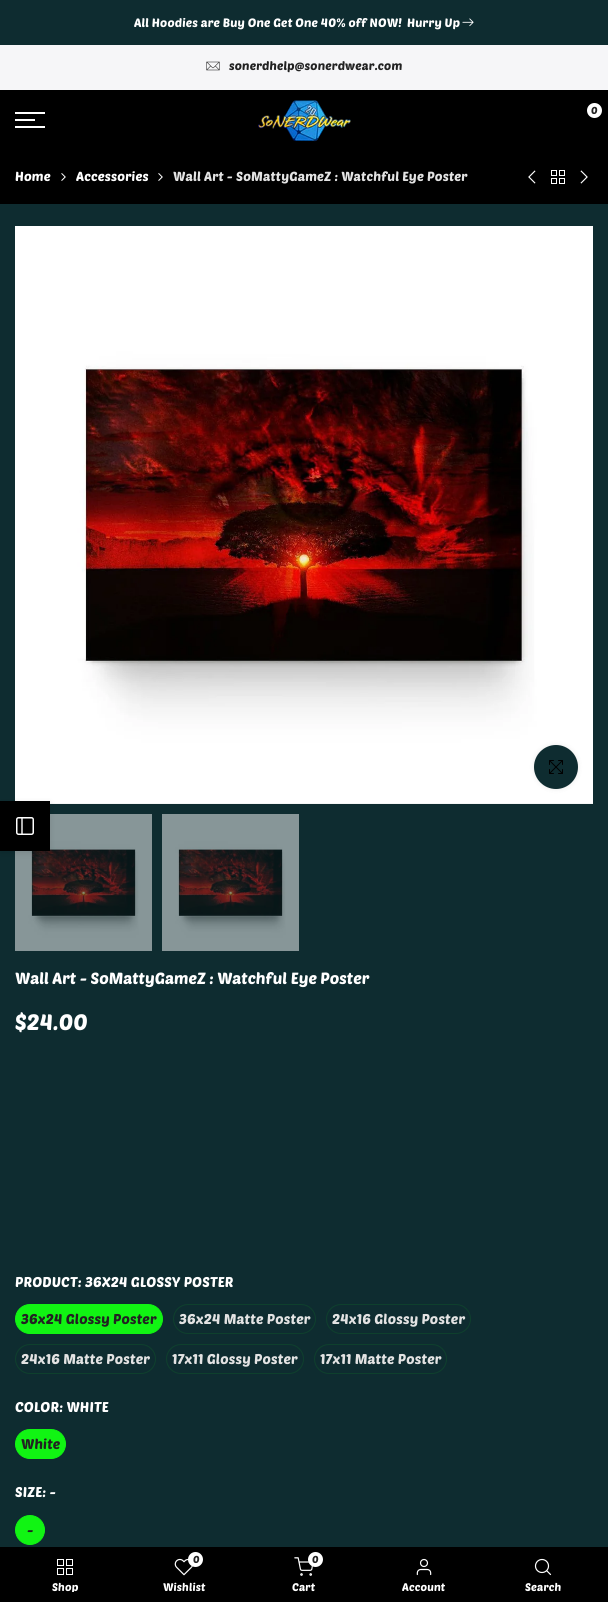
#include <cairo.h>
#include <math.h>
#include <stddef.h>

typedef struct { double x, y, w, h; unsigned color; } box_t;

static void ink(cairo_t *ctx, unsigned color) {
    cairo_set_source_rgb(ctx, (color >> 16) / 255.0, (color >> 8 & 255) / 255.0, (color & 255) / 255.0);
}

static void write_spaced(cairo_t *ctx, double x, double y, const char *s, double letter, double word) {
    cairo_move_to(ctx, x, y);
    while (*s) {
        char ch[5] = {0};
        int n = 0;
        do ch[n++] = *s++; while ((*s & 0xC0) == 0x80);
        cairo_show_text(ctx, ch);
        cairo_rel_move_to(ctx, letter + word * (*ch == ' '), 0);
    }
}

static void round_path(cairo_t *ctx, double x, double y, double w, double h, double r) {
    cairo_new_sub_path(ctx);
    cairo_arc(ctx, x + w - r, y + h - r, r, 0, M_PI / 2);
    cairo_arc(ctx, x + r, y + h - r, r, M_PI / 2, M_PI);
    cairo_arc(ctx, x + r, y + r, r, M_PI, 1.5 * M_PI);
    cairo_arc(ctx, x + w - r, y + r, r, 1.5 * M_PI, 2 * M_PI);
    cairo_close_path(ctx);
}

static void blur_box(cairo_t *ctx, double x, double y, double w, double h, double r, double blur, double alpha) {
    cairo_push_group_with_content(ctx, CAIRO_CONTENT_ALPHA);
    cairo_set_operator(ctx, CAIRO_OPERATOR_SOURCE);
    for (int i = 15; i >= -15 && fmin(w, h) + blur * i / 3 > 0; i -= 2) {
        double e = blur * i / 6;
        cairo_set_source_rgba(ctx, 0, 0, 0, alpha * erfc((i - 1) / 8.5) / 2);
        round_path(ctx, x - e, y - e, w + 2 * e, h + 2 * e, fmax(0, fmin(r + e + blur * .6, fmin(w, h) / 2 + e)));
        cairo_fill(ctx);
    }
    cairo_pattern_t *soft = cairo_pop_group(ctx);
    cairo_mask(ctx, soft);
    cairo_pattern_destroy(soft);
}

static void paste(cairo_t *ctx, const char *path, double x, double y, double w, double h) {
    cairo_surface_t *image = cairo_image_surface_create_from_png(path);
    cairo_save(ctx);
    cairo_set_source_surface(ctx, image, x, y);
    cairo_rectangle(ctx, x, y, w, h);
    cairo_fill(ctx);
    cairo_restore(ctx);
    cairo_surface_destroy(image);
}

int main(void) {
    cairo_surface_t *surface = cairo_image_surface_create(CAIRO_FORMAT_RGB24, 608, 1602);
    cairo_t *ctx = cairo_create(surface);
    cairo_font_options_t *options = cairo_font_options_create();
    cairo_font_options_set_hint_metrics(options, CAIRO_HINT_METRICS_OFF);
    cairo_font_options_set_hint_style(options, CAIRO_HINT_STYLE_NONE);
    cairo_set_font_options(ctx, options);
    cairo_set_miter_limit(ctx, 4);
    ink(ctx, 0x0E2C30);
    cairo_paint(ctx);
    cairo_select_font_face(ctx, "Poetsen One", CAIRO_FONT_SLANT_NORMAL, CAIRO_FONT_WEIGHT_NORMAL);
    cairo_set_font_size(ctx, 12);
    ink(ctx, 0xFFFFFF);
    write_spaced(ctx, 134, 27, "All Hoodies are Buy One Get One 40% off NOW!", 0.15, 0);
    write_spaced(ctx, 407, 27, "Hurry Up", 0.15, 0);
    paste(ctx, "media/1.png", 462, 18, 12, 9);
    ink(ctx, 0xF6F6F8);
    cairo_rectangle(ctx, 0, 45, 608, 45);
    cairo_fill(ctx);
    paste(ctx, "media/2.png", 206, 61, 14, 10);
    ink(ctx, 0x222222);
    write_spaced(ctx, 229, 70, "sonerdhelp@sonerdwear.com", 0.15, 0);
    ink(ctx, 0x000000);
    cairo_rectangle(ctx, 0, 90, 608, 114);
    cairo_fill(ctx);
    paste(ctx, "media/3.png", 258, 100, 93, 42);
    ink(ctx, 0xFFFFFF);
    cairo_arc(ctx, 594.5, 110.5, 7.5, 0, 2 * M_PI);
    cairo_fill(ctx);
    cairo_set_font_size(ctx, 10);
    ink(ctx, 0x222222);
    write_spaced(ctx, 591, 114, "0", 0.15, 0);
    {
        static const box_t items[] = {
            {15, 112, 30, 2, 0xFFFFFF},
            {15, 119, 20, 2, 0xFFFFFF},
            {15, 126, 30, 2, 0xFFFFFF},
        };
        for (size_t i = 0; i < sizeof items / sizeof *items; i++) {
            ink(ctx, items[i].color);
            cairo_rectangle(ctx, items[i].x, items[i].y, items[i].w, items[i].h);
            cairo_fill(ctx);
        }
    }
    cairo_set_font_size(ctx, 13);
    write_spaced(ctx, 15, 181, "Home", 0.15, 0);
    paste(ctx, "media/4.png", 61, 173, 5, 8);
    write_spaced(ctx, 76, 181, "Accessories", 0.15, 0);
    paste(ctx, "media/4.png", 158, 173, 5, 8);
    ink(ctx, 0xE3E3E3);
    write_spaced(ctx, 173, 181, "Wall Art - SoMattyGameZ : Watchful Eye Poster", 0.15, 0);
    paste(ctx, "media/5.png", 528, 170, 8, 14);
    paste(ctx, "media/6.png", 551, 170, 14, 14);
    paste(ctx, "media/7.png", 580, 170, 8, 14);
    paste(ctx, "media/8.png", 15, 226, 578, 578);
    paste(ctx, "media/10.png", 15, 814, 137, 137);
    ink(ctx, 0x000000);
    blur_box(ctx, 0, 803, 50, 50, 0, 3, 0.1);
    ink(ctx, 0x000000);
    cairo_rectangle(ctx, 0, 801, 50, 50);
    cairo_fill(ctx);
    round_path(ctx, 16.75, 817.75, 16.5, 16.5, 1.75);
    ink(ctx, 0xFFFFFF);
    cairo_set_line_width(ctx, 1.5);
    cairo_stroke(ctx);
    cairo_new_path(ctx);
    cairo_move_to(ctx, 22, 818);
    cairo_line_to(ctx, 22, 834);
    cairo_set_line_width(ctx, 1.4);
    cairo_set_line_cap(ctx, CAIRO_LINE_CAP_ROUND);
    cairo_set_line_join(ctx, CAIRO_LINE_JOIN_ROUND);
    cairo_stroke(ctx);
    ink(ctx, 0x000000);
    blur_box(ctx, 534, 745, 44, 44, 22, 2.5, 0.09);
    ink(ctx, 0x0E2C30);
    cairo_arc(ctx, 556, 767, 22, 0, 2 * M_PI);
    cairo_fill(ctx);
    paste(ctx, "media/9.png", 549, 760, 14, 14);
    paste(ctx, "media/11.png", 162, 814, 137, 137);
    cairo_set_font_size(ctx, 16);
    ink(ctx, 0xFFFFFF);
    cairo_move_to(ctx, 15, 984);
    cairo_show_text(ctx, "Wall Art - SoMattyGameZ : Watchful Eye Poster");
    cairo_set_font_size(ctx, 22);
    write_spaced(ctx, 15, 1030, "$24.00", 0.15, 0);
    cairo_set_font_size(ctx, 14);
    write_spaced(ctx, 15, 1287, "PRODUCT: 36X24 GLOSSY POSTER", 0.15, 0);
    ink(ctx, 0x11F413);
    round_path(ctx, 15.5, 1304.5, 147, 29, 14.5);
    cairo_fill_preserve(ctx);
    cairo_set_line_width(ctx, 1);
    cairo_set_line_cap(ctx, CAIRO_LINE_CAP_BUTT);
    cairo_set_line_join(ctx, CAIRO_LINE_JOIN_MITER);
    cairo_stroke(ctx);
    ink(ctx, 0x222222);
    write_spaced(ctx, 21, 1324, "36x24 Glossy Poster", 0.15, 0);
    round_path(ctx, 173.5, 1304.5, 142, 29, 14.5);
    ink(ctx, 0x0E402D);
    cairo_stroke(ctx);
    ink(ctx, 0xE3E3E3);
    write_spaced(ctx, 179, 1324, "36x24 Matte Poster", 0.15, 0);
    round_path(ctx, 326.5, 1304.5, 144, 29, 14.5);
    ink(ctx, 0x0E402D);
    cairo_stroke(ctx);
    ink(ctx, 0xE3E3E3);
    write_spaced(ctx, 332, 1324, "24x16 Glossy Poster", 0.15, 0);
    round_path(ctx, 15.5, 1344.5, 140, 29, 14.5);
    ink(ctx, 0x0E402D);
    cairo_stroke(ctx);
    ink(ctx, 0xE3E3E3);
    write_spaced(ctx, 21, 1364, "24x16 Matte Poster", 0.15, 0);
    round_path(ctx, 166.5, 1344.5, 137, 29, 14.5);
    ink(ctx, 0x0E402D);
    cairo_stroke(ctx);
    ink(ctx, 0xE3E3E3);
    write_spaced(ctx, 172, 1364, "17x11 Glossy Poster", 0.15, 0);
    round_path(ctx, 314.5, 1344.5, 132, 29, 14.5);
    ink(ctx, 0x0E402D);
    cairo_stroke(ctx);
    ink(ctx, 0xE3E3E3);
    write_spaced(ctx, 320, 1364, "17x11 Matte Poster", 0.15, 0);
    ink(ctx, 0xFFFFFF);
    write_spaced(ctx, 15, 1412, "COLOR: WHITE", 0.15, 0);
    ink(ctx, 0x11F413);
    round_path(ctx, 15.5, 1429.5, 50, 29, 14.5);
    cairo_fill_preserve(ctx);
    cairo_stroke(ctx);
    ink(ctx, 0x222222);
    write_spaced(ctx, 21, 1449, "White", 0.15, 0);
    ink(ctx, 0xFFFFFF);
    write_spaced(ctx, 15, 1497, "SIZE: -", 0.15, 0);
    ink(ctx, 0x11F413);
    cairo_new_path(ctx);
    cairo_arc(ctx, 30, 1530, 14.5, 0, 2 * M_PI);
    cairo_fill_preserve(ctx);
    cairo_stroke(ctx);
    ink(ctx, 0x222222);
    write_spaced(ctx, 27, 1535, "-", 0.15, 0);
    ink(ctx, 0x000000);
    cairo_rectangle(ctx, 0, 1547, 608, 55);
    cairo_fill(ctx);
    paste(ctx, "media/12.png", 57, 1559, 16, 16);
    cairo_save(ctx);
    cairo_rectangle(ctx, 15, 1581, 100, 11);
    cairo_clip(ctx);
    cairo_set_font_size(ctx, 11);
    ink(ctx, 0xFFFFFF);
    write_spaced(ctx, 52, 1591, "Shop", 0.15, 0);
    cairo_restore(ctx);
    paste(ctx, "media/13.png", 174, 1558, 19, 18);
    ink(ctx, 0x000000);
    blur_box(ctx, 189, 1553, 15, 15, 7.5, 1.5, 0.3);
    ink(ctx, 0xFFFFFF);
    cairo_arc(ctx, 195.5, 1559.5, 7.5, 0, 2 * M_PI);
    cairo_fill(ctx);
    cairo_set_font_size(ctx, 10);
    ink(ctx, 0x222222);
    write_spaced(ctx, 193, 1563, "0", 0.15, 0);
    cairo_set_font_size(ctx, 11);
    ink(ctx, 0xFFFFFF);
    write_spaced(ctx, 163, 1591, "Wishlist", 0.15, 0);
    paste(ctx, "media/14.png", 294, 1557, 19, 19);
    ink(ctx, 0x000000);
    blur_box(ctx, 309, 1553, 15, 15, 7.5, 1.5, 0.3);
    ink(ctx, 0xFFFFFF);
    cairo_arc(ctx, 315.5, 1559.5, 7.5, 0, 2 * M_PI);
    cairo_fill(ctx);
    cairo_set_font_size(ctx, 10);
    ink(ctx, 0x222222);
    write_spaced(ctx, 312, 1563, "0", 0.15, 0);
    cairo_set_font_size(ctx, 11);
    ink(ctx, 0xFFFFFF);
    write_spaced(ctx, 292, 1591, "Cart", 0.15, 0);
    paste(ctx, "media/15.png", 416, 1558, 16, 18);
    write_spaced(ctx, 402, 1591, "Account", 0.15, 0);
    cairo_new_path(ctx);
    cairo_arc(ctx, 542, 1566, 6.5, 0, 2 * M_PI);
    cairo_set_line_width(ctx, 1.2);
    cairo_stroke(ctx);
    cairo_new_path(ctx);
    cairo_move_to(ctx, 550.5, 1574.5);
    cairo_line_to(ctx, 547, 1571);
    cairo_set_line_cap(ctx, CAIRO_LINE_CAP_ROUND);
    cairo_set_line_join(ctx, CAIRO_LINE_JOIN_ROUND);
    cairo_stroke(ctx);
    write_spaced(ctx, 525, 1591, "Search", 0.15, 0);
    cairo_surface_write_to_png(surface, "image.png");
    cairo_font_options_destroy(options);
    cairo_destroy(ctx);
    cairo_surface_destroy(surface);
    return 0;
}
